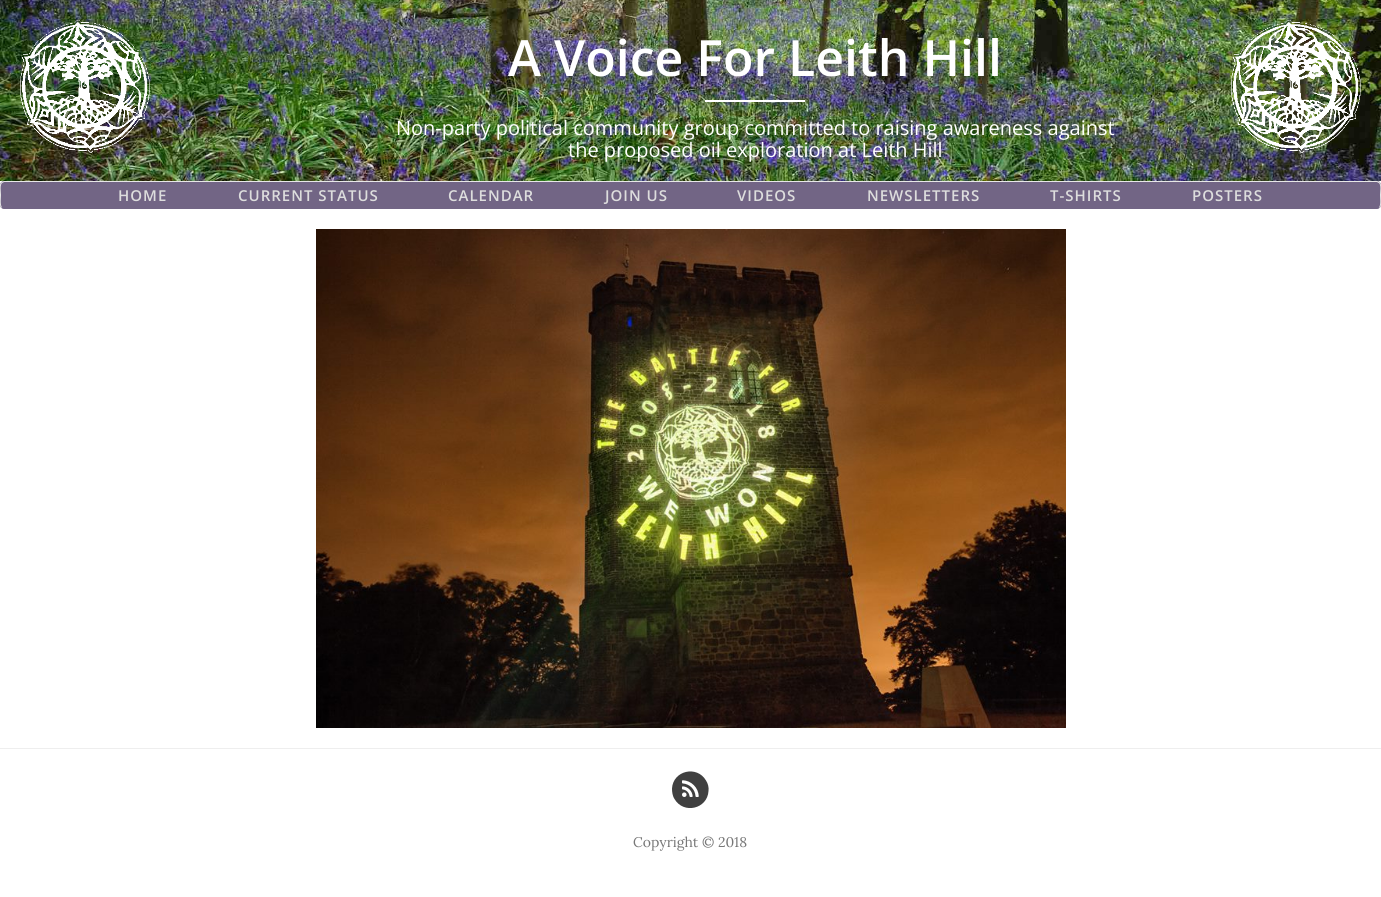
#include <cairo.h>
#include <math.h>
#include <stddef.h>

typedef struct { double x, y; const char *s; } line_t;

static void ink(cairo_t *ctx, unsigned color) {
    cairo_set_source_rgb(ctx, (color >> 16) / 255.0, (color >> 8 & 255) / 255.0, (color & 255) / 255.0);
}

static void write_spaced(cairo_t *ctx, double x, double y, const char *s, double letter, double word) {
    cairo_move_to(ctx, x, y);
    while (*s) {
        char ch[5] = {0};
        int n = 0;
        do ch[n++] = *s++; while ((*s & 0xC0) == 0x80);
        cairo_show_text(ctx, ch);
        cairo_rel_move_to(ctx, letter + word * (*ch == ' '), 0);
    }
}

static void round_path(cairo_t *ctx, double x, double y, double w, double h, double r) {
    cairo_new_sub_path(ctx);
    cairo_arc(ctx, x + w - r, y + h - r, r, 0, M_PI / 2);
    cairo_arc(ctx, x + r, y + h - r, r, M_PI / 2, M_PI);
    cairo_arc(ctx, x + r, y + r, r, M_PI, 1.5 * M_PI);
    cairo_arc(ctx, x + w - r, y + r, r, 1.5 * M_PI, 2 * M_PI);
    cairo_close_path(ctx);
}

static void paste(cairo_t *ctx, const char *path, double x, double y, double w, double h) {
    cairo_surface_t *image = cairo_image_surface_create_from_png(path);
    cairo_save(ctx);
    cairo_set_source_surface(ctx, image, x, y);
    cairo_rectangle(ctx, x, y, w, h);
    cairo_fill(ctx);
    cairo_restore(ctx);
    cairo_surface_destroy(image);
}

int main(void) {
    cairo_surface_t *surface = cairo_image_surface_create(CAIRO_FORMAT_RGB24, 1381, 897);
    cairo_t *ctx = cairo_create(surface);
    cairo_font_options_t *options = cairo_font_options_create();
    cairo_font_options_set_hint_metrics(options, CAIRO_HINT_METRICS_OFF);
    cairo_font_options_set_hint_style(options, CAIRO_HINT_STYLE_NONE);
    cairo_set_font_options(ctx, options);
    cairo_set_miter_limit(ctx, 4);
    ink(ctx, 0xFFFFFF);
    cairo_paint(ctx);
    paste(ctx, "media/1.png", 0, 0, 1381, 181);
    paste(ctx, "media/2.png", 20, 20, 130, 133);
    cairo_select_font_face(ctx, "Open Sans SemiBold", CAIRO_FONT_SLANT_NORMAL, CAIRO_FONT_WEIGHT_NORMAL);
    cairo_set_font_size(ctx, 50);
    ink(ctx, 0xFFFFFF);
    cairo_move_to(ctx, 508, 76);
    cairo_show_text(ctx, "A Voice For Leith Hill");
    cairo_rectangle(ctx, 705, 100, 100, 2);
    cairo_fill(ctx);
    cairo_select_font_face(ctx, "Open Sans", CAIRO_FONT_SLANT_NORMAL, CAIRO_FONT_WEIGHT_NORMAL);
    cairo_set_font_size(ctx, 20);
    cairo_move_to(ctx, 396, 135);
    cairo_show_text(ctx, "Non-party political community group committed to raising awareness against");
    cairo_move_to(ctx, 568, 157);
    cairo_show_text(ctx, "the proposed oil exploration at Leith Hill");
    paste(ctx, "media/3.png", 1231, 20, 130, 133);
    ink(ctx, 0x726585);
    round_path(ctx, 0, 181, 1381, 28, 4);
    cairo_fill(ctx);
    cairo_new_path(ctx);
    cairo_move_to(ctx, 1.5, 207.5);
    cairo_curve_to(ctx, -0.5, 205, 0.5, 197.5, 0.5, 195);
    cairo_curve_to(ctx, 0.5, 192, -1, 184.5, 2, 182.5);
    cairo_line_to(ctx, 4, 181.5);
    cairo_line_to(ctx, 1377, 181.5);
    cairo_line_to(ctx, 1379, 182.5);
    cairo_curve_to(ctx, 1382, 184.5, 1380.5, 192, 1380.5, 195);
    cairo_curve_to(ctx, 1380.5, 197.5, 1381.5, 205, 1379.5, 207.5);
    ink(ctx, 0xE7E7E7);
    cairo_set_line_width(ctx, 1);
    cairo_stroke(ctx);
    cairo_select_font_face(ctx, "Open Sans SemiBold", CAIRO_FONT_SLANT_NORMAL, CAIRO_FONT_WEIGHT_NORMAL);
    cairo_set_font_size(ctx, 15);
    ink(ctx, 0xDDDDDD);
    {
        static const line_t items[] = {
            {118, 201, "HOME"},
            {238, 201, "CURRENT STATUS"},
            {448, 201, "CALENDAR"},
            {605, 201, "JOIN US"},
            {737, 201, "VIDEOS"},
            {867, 201, "NEWSLETTERS"},
            {1050, 201, "T-SHIRTS"},
            {1192, 201, "POSTERS"},
        };
        for (size_t i = 0; i < sizeof items / sizeof *items; i++) {
            write_spaced(ctx, items[i].x, items[i].y, items[i].s, 1, 0);
        }
    }
    paste(ctx, "media/4.png", 316, 229, 750, 499);
    ink(ctx, 0xEEEEEE);
    cairo_rectangle(ctx, 0, 748, 1381, 1);
    cairo_fill(ctx);
    ink(ctx, 0x404040);
    cairo_new_path(ctx);
    cairo_move_to(ctx, 706, 780.5);
    cairo_curve_to(ctx, 708, 783.5, 709, 787.5, 708.5, 791);
    cairo_curve_to(ctx, 707.5, 809, 683.5, 814.5, 674.5, 799);
    cairo_curve_to(ctx, 672.5, 796, 672, 792, 672, 788.5);
    cairo_curve_to(ctx, 673, 770.5, 697, 765, 706, 780.5);
    cairo_close_path(ctx);
    cairo_fill(ctx);
    paste(ctx, "media/5.png", 682, 780, 17, 17);
    cairo_select_font_face(ctx, "Lora", CAIRO_FONT_SLANT_NORMAL, CAIRO_FONT_WEIGHT_NORMAL);
    cairo_set_font_size(ctx, 14);
    ink(ctx, 0x777777);
    cairo_move_to(ctx, 633, 847);
    cairo_show_text(ctx, "Copyright © 2018");
    cairo_surface_write_to_png(surface, "image.png");
    cairo_font_options_destroy(options);
    cairo_destroy(ctx);
    cairo_surface_destroy(surface);
    return 0;
}
